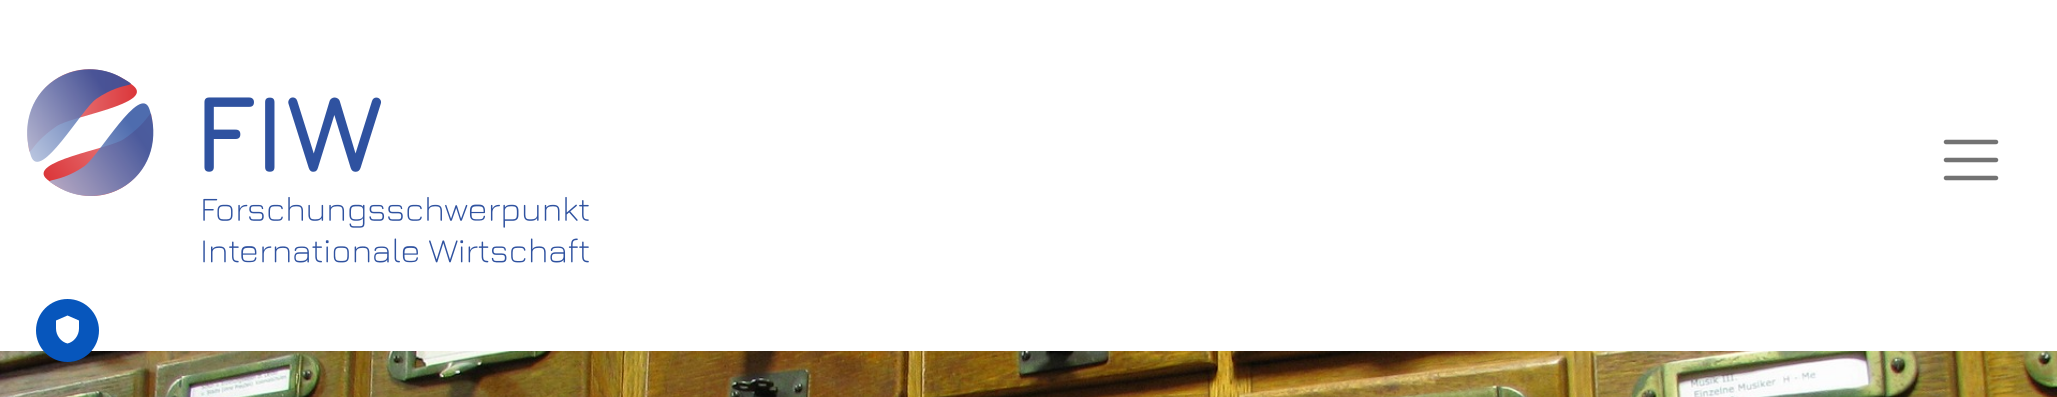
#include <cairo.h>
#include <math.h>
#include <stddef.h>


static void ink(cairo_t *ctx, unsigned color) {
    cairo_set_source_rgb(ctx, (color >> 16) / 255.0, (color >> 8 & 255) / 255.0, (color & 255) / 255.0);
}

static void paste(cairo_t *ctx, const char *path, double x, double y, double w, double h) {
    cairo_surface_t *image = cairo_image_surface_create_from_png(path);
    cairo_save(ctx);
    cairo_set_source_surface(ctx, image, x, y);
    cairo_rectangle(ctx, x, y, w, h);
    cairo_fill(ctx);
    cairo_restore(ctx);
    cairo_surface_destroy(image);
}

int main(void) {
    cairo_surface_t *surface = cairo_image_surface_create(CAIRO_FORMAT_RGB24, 2057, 397);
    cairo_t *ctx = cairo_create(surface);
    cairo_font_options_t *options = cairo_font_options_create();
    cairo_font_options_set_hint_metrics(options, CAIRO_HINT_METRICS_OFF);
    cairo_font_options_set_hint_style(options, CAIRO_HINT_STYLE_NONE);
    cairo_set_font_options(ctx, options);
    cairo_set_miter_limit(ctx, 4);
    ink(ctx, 0xFFFFFF);
    cairo_paint(ctx);
    paste(ctx, "media/1.png", 27, 69, 562, 194);
    cairo_new_path(ctx);
    cairo_move_to(ctx, 1946, 142);
    cairo_line_to(ctx, 1996, 142);
    cairo_move_to(ctx, 1946, 160);
    cairo_line_to(ctx, 1996, 160);
    cairo_move_to(ctx, 1946, 178);
    cairo_line_to(ctx, 1996, 178);
    ink(ctx, 0x737373);
    cairo_set_line_width(ctx, 4.5);
    cairo_set_line_cap(ctx, CAIRO_LINE_CAP_ROUND);
    cairo_stroke(ctx);
    paste(ctx, "media/2.png", 0, 351, 2057, 46);
    ink(ctx, 0x0756BC);
    cairo_arc(ctx, 67.5, 330.5, 31.5, 0, 2 * M_PI);
    cairo_fill(ctx);
    ink(ctx, 0xFFFFFF);
    cairo_set_fill_rule(ctx, CAIRO_FILL_RULE_EVEN_ODD);
    cairo_new_path(ctx);
    cairo_move_to(ctx, 67.5, 315.5);
    cairo_line_to(ctx, 56, 320.5);
    cairo_line_to(ctx, 56, 328.5);
    cairo_curve_to(ctx, 56, 335.5, 61, 342, 67.5, 343.5);
    cairo_curve_to(ctx, 74, 342, 79, 335.5, 79, 328.5);
    cairo_line_to(ctx, 79, 320.5);
    cairo_close_path(ctx);
    cairo_fill(ctx);
    cairo_surface_write_to_png(surface, "image.png");
    cairo_font_options_destroy(options);
    cairo_destroy(ctx);
    cairo_surface_destroy(surface);
    return 0;
}
